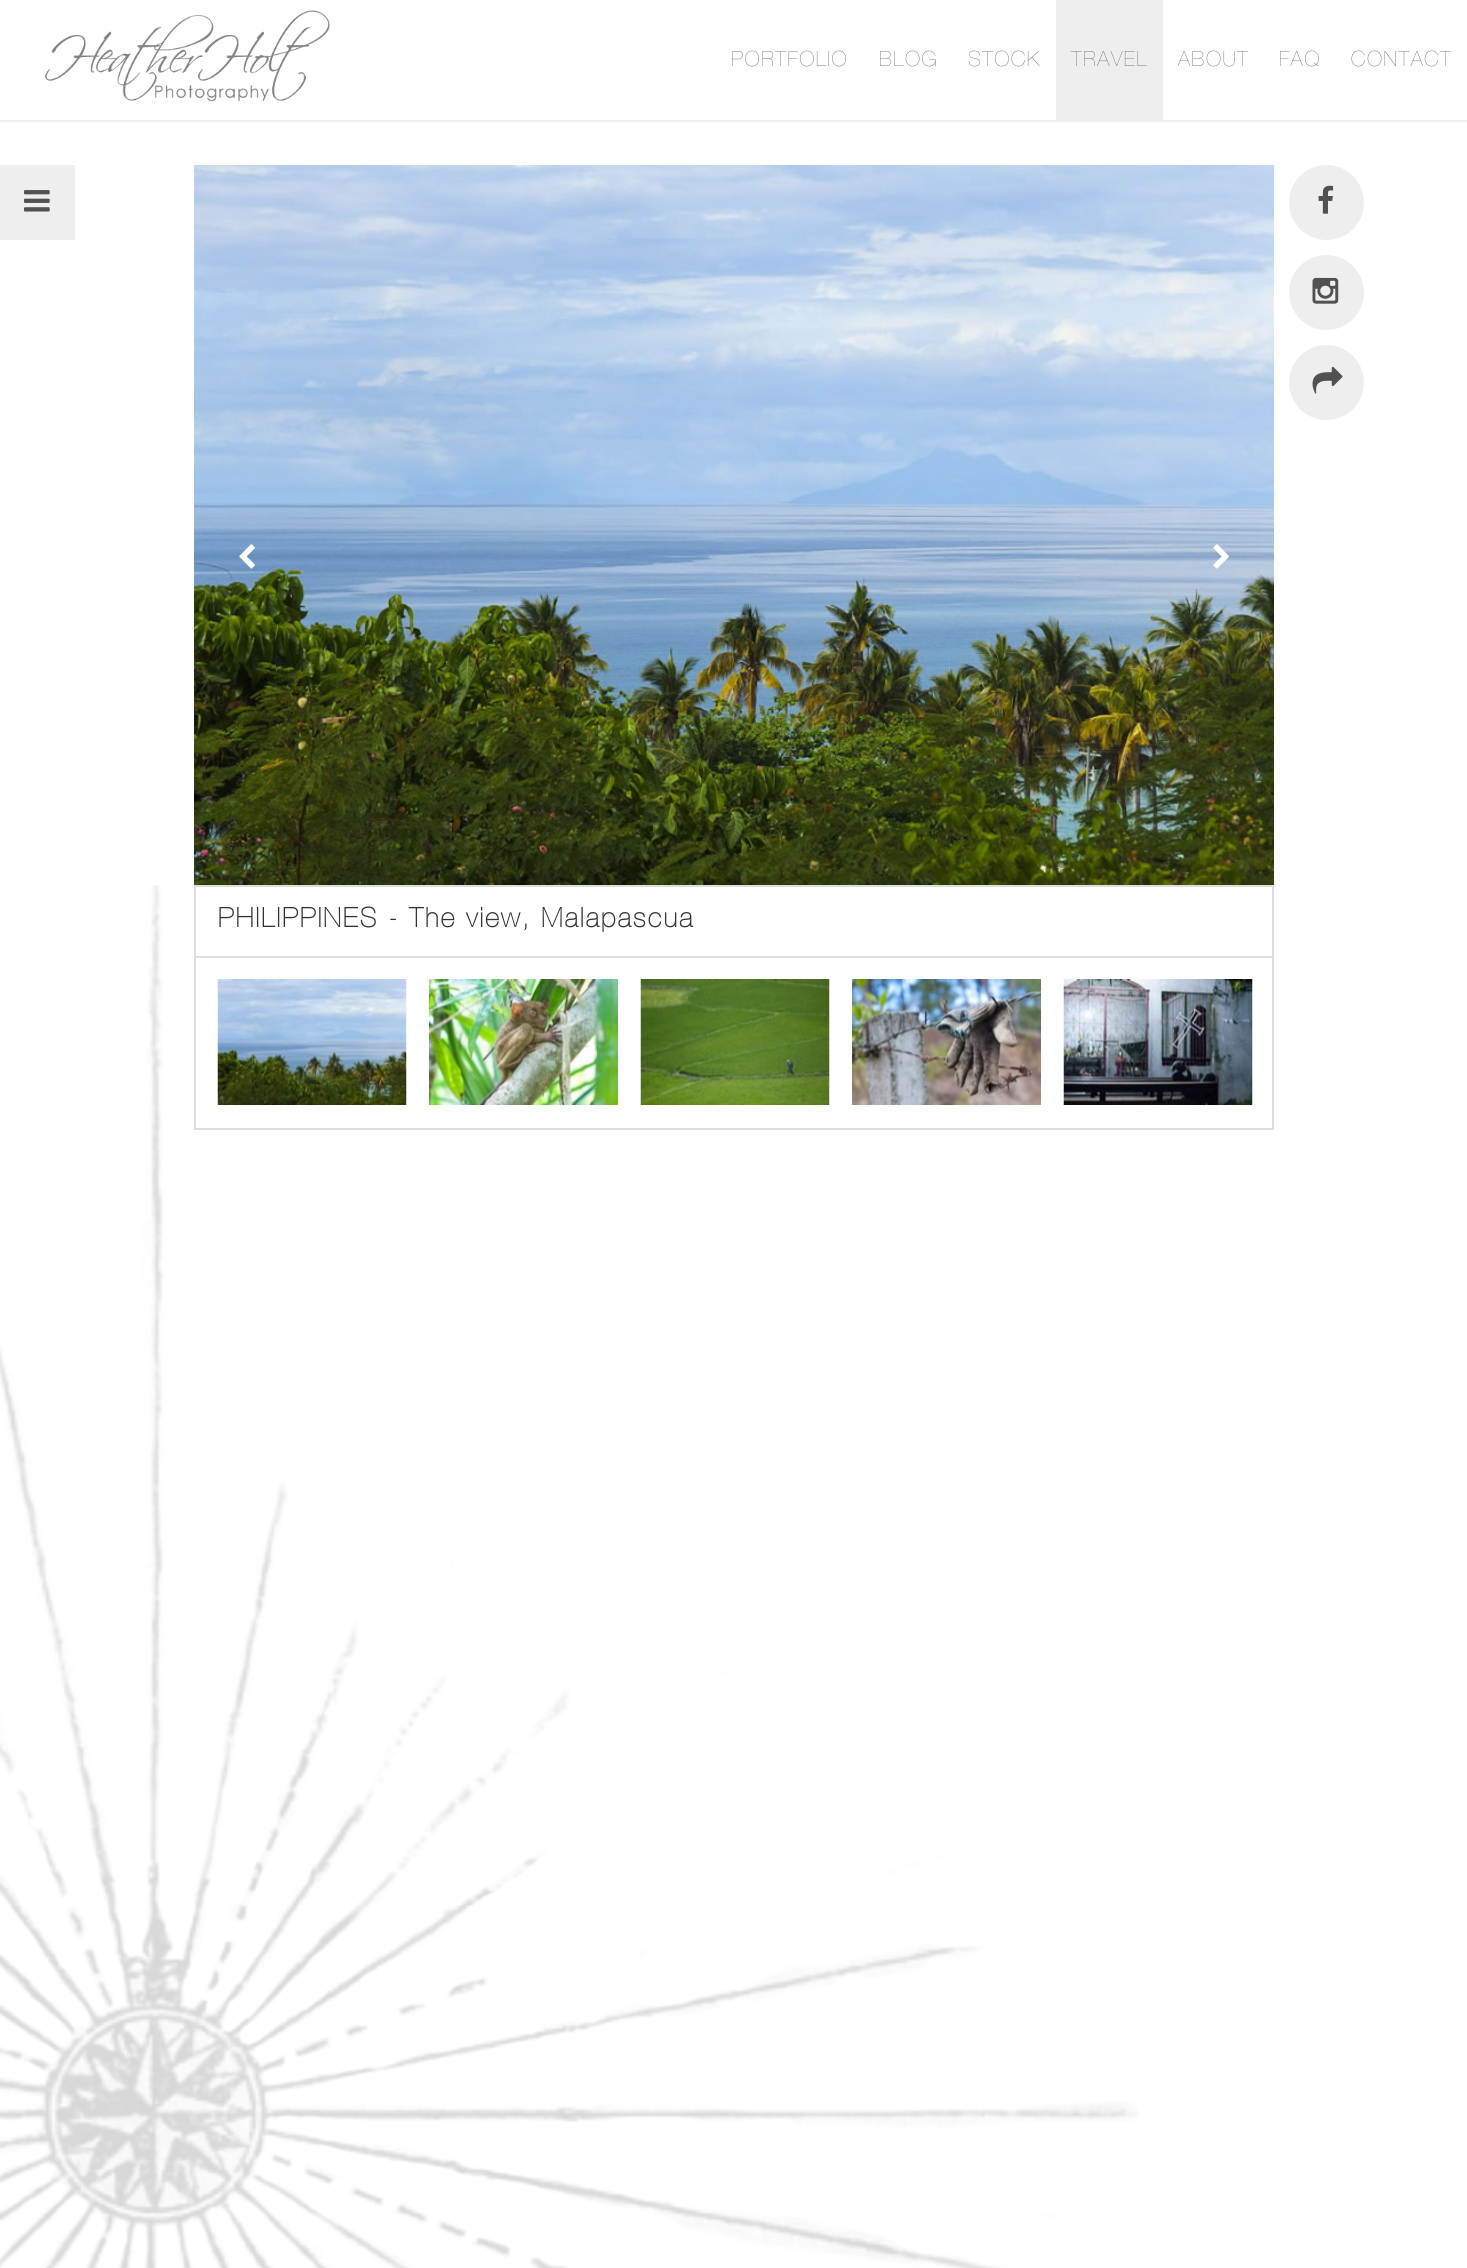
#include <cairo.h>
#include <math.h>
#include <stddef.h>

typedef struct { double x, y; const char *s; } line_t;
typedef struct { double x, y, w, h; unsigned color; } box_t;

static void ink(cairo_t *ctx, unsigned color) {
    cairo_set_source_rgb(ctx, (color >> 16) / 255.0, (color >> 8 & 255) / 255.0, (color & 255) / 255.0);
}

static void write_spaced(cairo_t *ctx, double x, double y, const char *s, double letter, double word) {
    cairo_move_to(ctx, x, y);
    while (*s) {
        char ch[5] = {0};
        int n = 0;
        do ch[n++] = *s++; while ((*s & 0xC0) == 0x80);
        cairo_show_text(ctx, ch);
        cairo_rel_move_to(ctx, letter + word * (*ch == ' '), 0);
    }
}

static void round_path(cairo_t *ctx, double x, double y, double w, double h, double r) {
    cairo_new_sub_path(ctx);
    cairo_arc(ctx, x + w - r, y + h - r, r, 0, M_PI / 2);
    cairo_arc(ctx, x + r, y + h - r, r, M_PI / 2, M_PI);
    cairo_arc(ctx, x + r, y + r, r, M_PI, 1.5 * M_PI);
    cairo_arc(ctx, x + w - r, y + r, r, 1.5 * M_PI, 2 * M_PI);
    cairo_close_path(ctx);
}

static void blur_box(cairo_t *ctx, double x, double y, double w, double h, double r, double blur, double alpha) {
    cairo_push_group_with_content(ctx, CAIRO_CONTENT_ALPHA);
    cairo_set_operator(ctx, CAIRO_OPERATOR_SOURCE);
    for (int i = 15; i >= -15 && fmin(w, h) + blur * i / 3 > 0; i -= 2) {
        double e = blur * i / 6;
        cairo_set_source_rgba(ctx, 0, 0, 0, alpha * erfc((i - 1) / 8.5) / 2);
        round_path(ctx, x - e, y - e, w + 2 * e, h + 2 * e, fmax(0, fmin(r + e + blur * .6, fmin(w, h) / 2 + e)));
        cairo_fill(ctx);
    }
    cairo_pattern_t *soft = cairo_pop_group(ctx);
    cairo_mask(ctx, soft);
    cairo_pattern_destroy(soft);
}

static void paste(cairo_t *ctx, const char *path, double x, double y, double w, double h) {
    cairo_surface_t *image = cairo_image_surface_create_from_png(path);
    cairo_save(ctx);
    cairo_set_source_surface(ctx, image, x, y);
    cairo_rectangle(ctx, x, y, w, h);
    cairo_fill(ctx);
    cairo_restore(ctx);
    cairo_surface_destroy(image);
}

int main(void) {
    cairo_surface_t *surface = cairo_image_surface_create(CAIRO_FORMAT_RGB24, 1467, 2268);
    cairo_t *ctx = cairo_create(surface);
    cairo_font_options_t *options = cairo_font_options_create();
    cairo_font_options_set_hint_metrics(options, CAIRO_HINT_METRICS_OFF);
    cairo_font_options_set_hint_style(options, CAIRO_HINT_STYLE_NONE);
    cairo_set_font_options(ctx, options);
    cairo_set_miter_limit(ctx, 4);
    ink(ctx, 0xFFFFFF);
    cairo_paint(ctx);
    paste(ctx, "media/1.png", 0, 885, 1139, 1383);
    cairo_save(ctx);
    cairo_rectangle(ctx, 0, 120, 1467, 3);
    cairo_clip(ctx);
    ink(ctx, 0x000000);
    blur_box(ctx, 0, 0, 1467, 120, 0, 2, 0.2);
    cairo_restore(ctx);
    paste(ctx, "media/2.png", 45, 10, 285, 92);
    cairo_select_font_face(ctx, "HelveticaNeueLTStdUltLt", CAIRO_FONT_SLANT_NORMAL, CAIRO_FONT_WEIGHT_NORMAL);
    cairo_set_font_size(ctx, 21);
    ink(ctx, 0x666666);
    {
        static const line_t items[] = {
            {731, 66, "PORTFOLIO"},
            {879, 66, "BLOG"},
            {968, 66, "STOCK"},
        };
        for (size_t i = 0; i < sizeof items / sizeof *items; i++) {
            write_spaced(ctx, items[i].x, items[i].y, items[i].s, 1.5, 0);
        }
    }
    ink(ctx, 0xEEEEEE);
    cairo_rectangle(ctx, 1056, 0, 107, 120);
    cairo_fill(ctx);
    ink(ctx, 0x666666);
    {
        static const line_t items[] = {
            {1071, 66, "TRAVEL"},
            {1178, 66, "ABOUT"},
            {1279, 66, "FAQ"},
            {1351, 66, "CONTACT"},
        };
        for (size_t i = 0; i < sizeof items / sizeof *items; i++) {
            write_spaced(ctx, items[i].x, items[i].y, items[i].s, 1.5, 0);
        }
    }
    ink(ctx, 0xEEEEEE);
    cairo_rectangle(ctx, 0, 165, 75, 75);
    cairo_fill(ctx);
    paste(ctx, "media/3.png", 24, 190, 26, 22);
    cairo_arc(ctx, 1326.5, 202.5, 37.5, 0, 2 * M_PI);
    cairo_fill(ctx);
    paste(ctx, "media/4.png", 1318, 185, 16, 29);
    cairo_arc(ctx, 1326.5, 292.5, 37.5, 0, 2 * M_PI);
    cairo_fill(ctx);
    paste(ctx, "media/5.png", 1312, 277, 27, 27);
    cairo_arc(ctx, 1326.5, 382.5, 37.5, 0, 2 * M_PI);
    cairo_fill(ctx);
    paste(ctx, "media/6.png", 1312, 366, 31, 28);
    paste(ctx, "media/9.png", 194, 165, 1080, 720);
    paste(ctx, "media/7.png", 239, 544, 16, 25);
    paste(ctx, "media/8.png", 1213, 544, 16, 25);
    {
        static const box_t items[] = {
            {194, 885, 1080, 2, 0xDDDDDD},
            {1272, 885, 2, 71, 0xDDDDDD},
            {194, 885, 2, 71, 0xDDDDDD},
        };
        for (size_t i = 0; i < sizeof items / sizeof *items; i++) {
            ink(ctx, items[i].color);
            cairo_rectangle(ctx, items[i].x, items[i].y, items[i].w, items[i].h);
            cairo_fill(ctx);
        }
    }
    cairo_select_font_face(ctx, "HelveticaNeueLTStdUltLt", CAIRO_FONT_SLANT_NORMAL, CAIRO_FONT_WEIGHT_BOLD);
    cairo_set_font_size(ctx, 27);
    ink(ctx, 0x333333);
    write_spaced(ctx, 218, 927, "PHILIPPINES - The view, Malapascua", 2.25, 0);
    cairo_rectangle(ctx, 195, 957, 1078, 172);
    ink(ctx, 0xDDDDDD);
    cairo_stroke(ctx);
    paste(ctx, "media/10.png", 217, 979, 190, 126);
    paste(ctx, "media/11.png", 429, 979, 189, 126);
    paste(ctx, "media/12.png", 640, 979, 190, 126);
    paste(ctx, "media/13.png", 852, 979, 189, 126);
    paste(ctx, "media/14.png", 1063, 979, 190, 126);
    cairo_surface_write_to_png(surface, "image.png");
    cairo_font_options_destroy(options);
    cairo_destroy(ctx);
    cairo_surface_destroy(surface);
    return 0;
}
